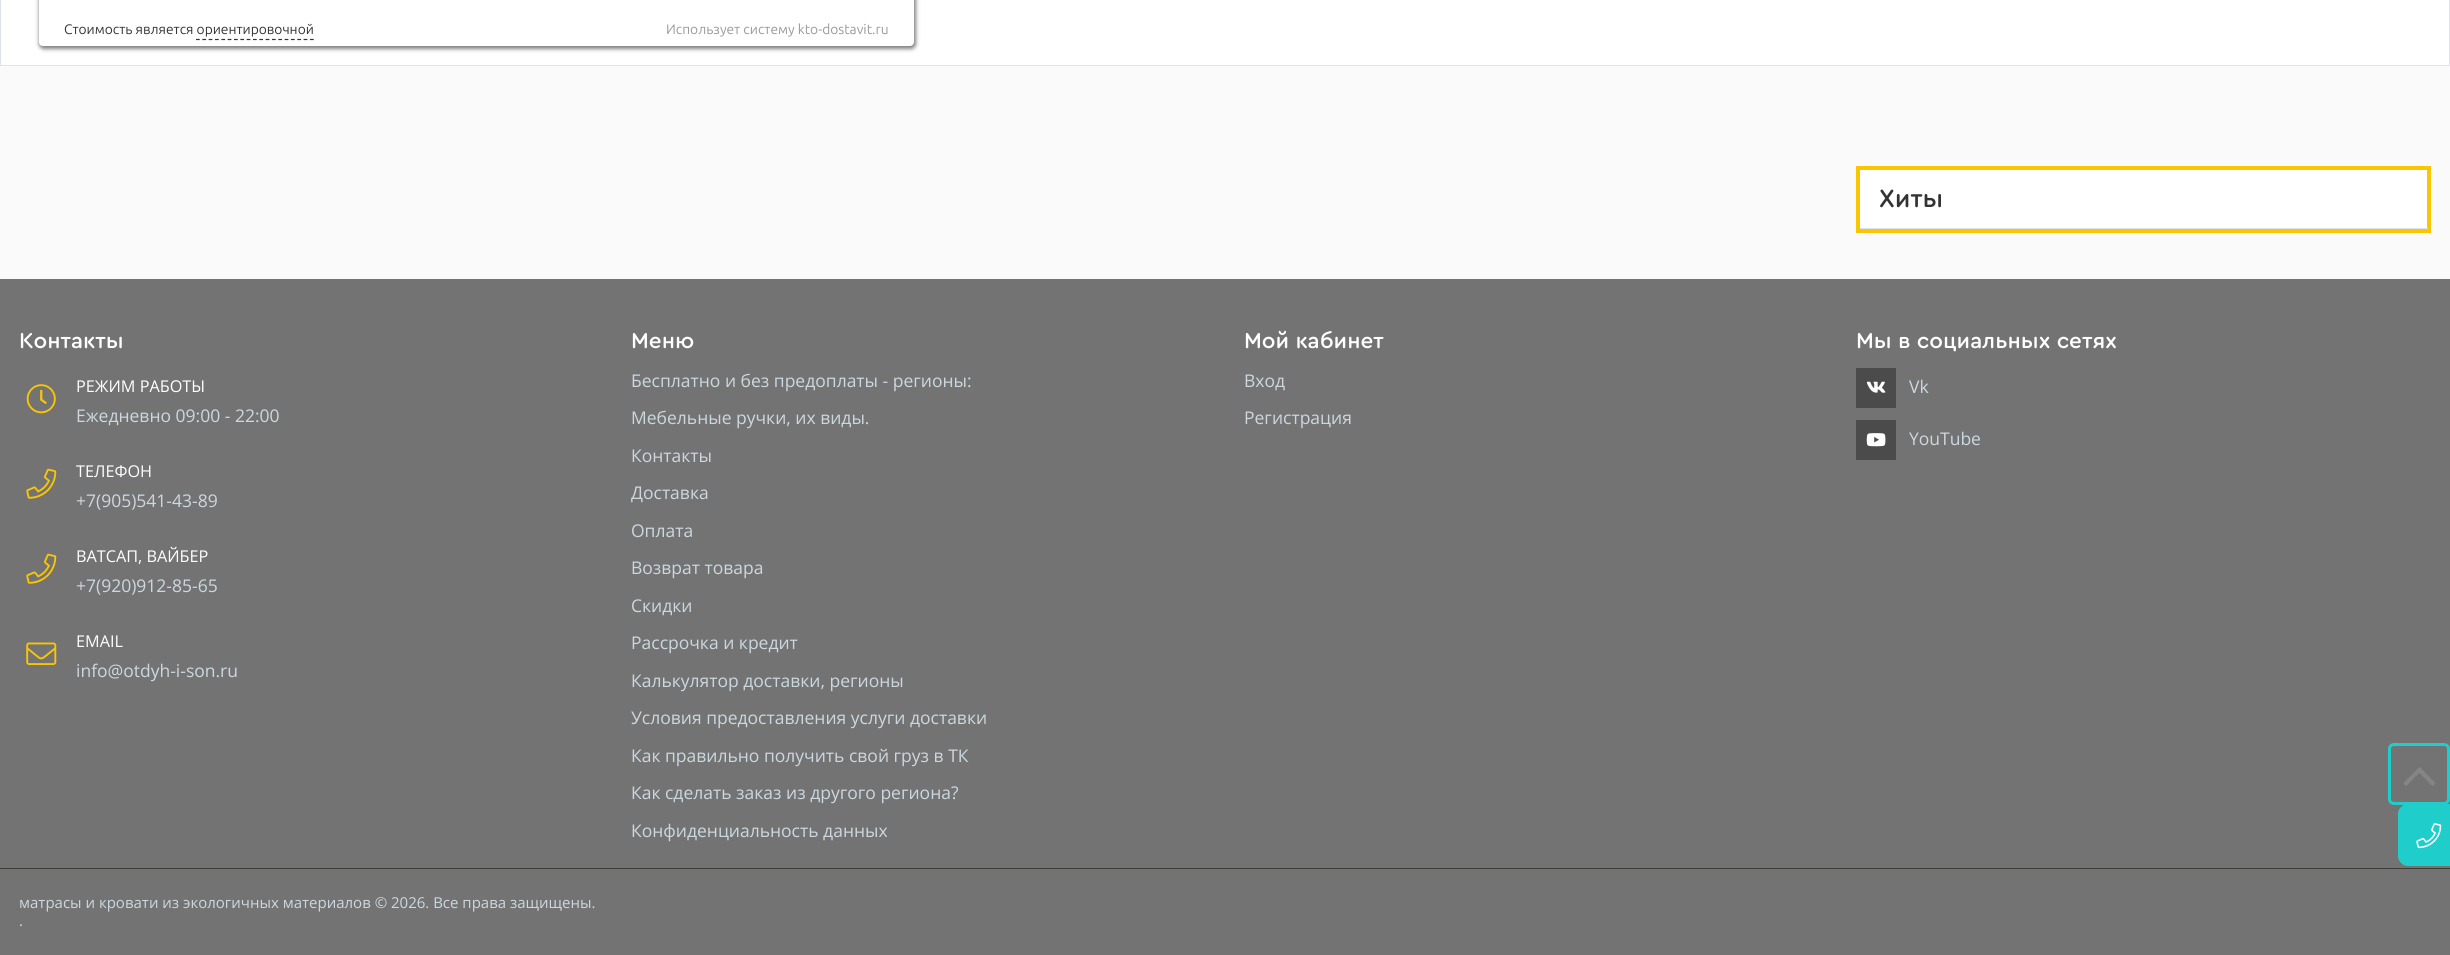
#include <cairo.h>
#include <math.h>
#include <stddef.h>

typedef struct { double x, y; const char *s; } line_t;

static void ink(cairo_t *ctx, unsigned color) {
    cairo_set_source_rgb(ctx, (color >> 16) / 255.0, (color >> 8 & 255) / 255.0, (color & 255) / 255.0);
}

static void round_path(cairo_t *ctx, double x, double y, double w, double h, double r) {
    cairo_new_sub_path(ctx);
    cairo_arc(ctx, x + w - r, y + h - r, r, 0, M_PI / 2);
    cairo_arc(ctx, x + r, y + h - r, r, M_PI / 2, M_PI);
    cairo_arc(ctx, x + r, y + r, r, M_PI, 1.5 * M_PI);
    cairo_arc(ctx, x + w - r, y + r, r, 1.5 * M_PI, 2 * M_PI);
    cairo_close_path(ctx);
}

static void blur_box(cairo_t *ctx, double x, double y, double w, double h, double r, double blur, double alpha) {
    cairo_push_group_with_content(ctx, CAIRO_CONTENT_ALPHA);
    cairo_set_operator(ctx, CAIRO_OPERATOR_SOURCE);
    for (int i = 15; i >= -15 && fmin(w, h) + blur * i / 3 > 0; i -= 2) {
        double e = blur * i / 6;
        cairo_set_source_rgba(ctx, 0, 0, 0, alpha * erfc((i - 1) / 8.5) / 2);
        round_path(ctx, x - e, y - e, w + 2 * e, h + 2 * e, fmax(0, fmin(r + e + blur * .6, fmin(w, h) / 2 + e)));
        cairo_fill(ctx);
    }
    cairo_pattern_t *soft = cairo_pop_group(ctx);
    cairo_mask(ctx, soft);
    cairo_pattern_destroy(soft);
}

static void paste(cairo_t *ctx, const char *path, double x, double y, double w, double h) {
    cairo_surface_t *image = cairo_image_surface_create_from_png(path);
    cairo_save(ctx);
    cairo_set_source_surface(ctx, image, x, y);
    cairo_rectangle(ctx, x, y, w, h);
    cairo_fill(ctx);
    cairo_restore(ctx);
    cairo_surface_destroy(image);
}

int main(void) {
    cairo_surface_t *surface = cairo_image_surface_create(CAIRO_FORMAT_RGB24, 2450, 955);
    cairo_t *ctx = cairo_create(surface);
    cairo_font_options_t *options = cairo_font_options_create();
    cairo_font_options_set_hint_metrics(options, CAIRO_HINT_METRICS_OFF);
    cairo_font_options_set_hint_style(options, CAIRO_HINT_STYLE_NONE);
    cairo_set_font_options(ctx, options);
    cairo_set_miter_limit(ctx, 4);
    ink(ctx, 0xFAFAFA);
    cairo_paint(ctx);
    ink(ctx, 0xFFFFFF);
    cairo_rectangle(ctx, 0.5, -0.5, 2449, 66);
    cairo_fill_preserve(ctx);
    ink(ctx, 0xDCE4E9);
    cairo_set_line_width(ctx, 1);
    cairo_stroke(ctx);
    ink(ctx, 0x000000);
    blur_box(ctx, 39, -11, 877, 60, 5, 2, 0.5);
    ink(ctx, 0xFFFFFF);
    round_path(ctx, 39, -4, 875, 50, 4);
    cairo_fill(ctx);
    cairo_select_font_face(ctx, "Ubuntu", CAIRO_FONT_SLANT_NORMAL, CAIRO_FONT_WEIGHT_NORMAL);
    cairo_set_font_size(ctx, 13.75);
    ink(ctx, 0x333333);
    cairo_move_to(ctx, 64, 34);
    cairo_show_text(ctx, "Стоимость является ориентировочной");
    cairo_new_path(ctx);
    cairo_move_to(ctx, 196, 39.5);
    cairo_line_to(ctx, 314, 39.5);
    cairo_set_line_width(ctx, 1.2);
    cairo_set_dash(ctx, (double[]){3.75, 2.58}, 2, 0);
    cairo_stroke(ctx);
    ink(ctx, 0x999999);
    cairo_move_to(ctx, 666, 34);
    cairo_show_text(ctx, "Использует систему kto-dostavit.ru");
    ink(ctx, 0xFFFFFF);
    cairo_rectangle(ctx, 1860, 170, 567, 58);
    cairo_fill(ctx);
    cairo_rectangle(ctx, 1858, 168, 571, 63);
    ink(ctx, 0xFAC601);
    cairo_set_line_width(ctx, 4);
    cairo_set_dash(ctx, NULL, 0, 0);
    cairo_stroke(ctx);
    ink(ctx, 0xDCE4E9);
    cairo_rectangle(ctx, 1860, 228, 568, 1);
    cairo_fill(ctx);
    cairo_select_font_face(ctx, "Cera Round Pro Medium", CAIRO_FONT_SLANT_NORMAL, CAIRO_FONT_WEIGHT_NORMAL);
    cairo_set_font_size(ctx, 26);
    ink(ctx, 0x333333);
    cairo_move_to(ctx, 1879, 207);
    cairo_show_text(ctx, "Хиты");
    ink(ctx, 0x737373);
    cairo_rectangle(ctx, 0, 279, 2450, 676);
    cairo_fill(ctx);
    cairo_set_font_size(ctx, 22.5);
    ink(ctx, 0xFFFFFF);
    cairo_move_to(ctx, 19, 348);
    cairo_show_text(ctx, "Контакты");
    paste(ctx, "media/1.png", 26, 384, 30, 30);
    cairo_select_font_face(ctx, "Open Sans", CAIRO_FONT_SLANT_NORMAL, CAIRO_FONT_WEIGHT_NORMAL);
    cairo_set_font_size(ctx, 16.25);
    cairo_move_to(ctx, 76, 392);
    cairo_show_text(ctx, "РЕЖИМ РАБОТЫ");
    cairo_set_font_size(ctx, 17.5);
    ink(ctx, 0xCCD8DF);
    cairo_move_to(ctx, 76, 422);
    cairo_show_text(ctx, "Ежедневно 09:00 - 22:00");
    paste(ctx, "media/2.png", 26, 468, 31, 31);
    cairo_set_font_size(ctx, 16.25);
    ink(ctx, 0xFFFFFF);
    cairo_move_to(ctx, 76, 477);
    cairo_show_text(ctx, "ТЕЛЕФОН");
    cairo_set_font_size(ctx, 17.5);
    ink(ctx, 0xCCD8DF);
    cairo_move_to(ctx, 76, 507);
    cairo_show_text(ctx, "+7(905)541-43-89");
    paste(ctx, "media/2.png", 26, 553, 31, 31);
    cairo_set_font_size(ctx, 16.25);
    ink(ctx, 0xFFFFFF);
    cairo_move_to(ctx, 76, 562);
    cairo_show_text(ctx, "ВАТСАП, ВАЙБЕР");
    cairo_set_font_size(ctx, 17.5);
    ink(ctx, 0xCCD8DF);
    cairo_move_to(ctx, 76, 592);
    cairo_show_text(ctx, "+7(920)912-85-65");
    paste(ctx, "media/3.png", 26, 642, 31, 23);
    cairo_set_font_size(ctx, 16.25);
    ink(ctx, 0xFFFFFF);
    cairo_move_to(ctx, 76, 647);
    cairo_show_text(ctx, "EMAIL");
    cairo_set_font_size(ctx, 17.5);
    ink(ctx, 0xCCD8DF);
    cairo_move_to(ctx, 76, 677);
    cairo_show_text(ctx, "info@otdyh-i-son.ru");
    cairo_select_font_face(ctx, "Cera Round Pro Medium", CAIRO_FONT_SLANT_NORMAL, CAIRO_FONT_WEIGHT_NORMAL);
    cairo_set_font_size(ctx, 22.5);
    ink(ctx, 0xFFFFFF);
    cairo_move_to(ctx, 631, 348);
    cairo_show_text(ctx, "Меню");
    cairo_select_font_face(ctx, "Open Sans", CAIRO_FONT_SLANT_NORMAL, CAIRO_FONT_WEIGHT_NORMAL);
    cairo_set_font_size(ctx, 17.5);
    ink(ctx, 0xCCD8DF);
    {
        static const line_t items[] = {
            {631, 387, "Бесплатно и без предоплаты - регионы:"},
            {631, 424, "Мебельные ручки, их виды."},
            {631, 462, "Контакты"},
            {631, 499, "Доставка"},
            {631, 537, "Оплата"},
            {631, 574, "Возврат товара"},
            {631, 612, "Скидки"},
            {631, 649, "Рассрочка и кредит"},
            {631, 687, "Калькулятор доставки, регионы"},
            {631, 724, "Условия предоставления услуги доставки"},
            {631, 762, "Как правильно получить свой груз в ТК"},
            {631, 799, "Как сделать заказ из другого региона?"},
            {631, 837, "Конфиденциальность данных"},
        };
        for (size_t i = 0; i < sizeof items / sizeof *items; i++) {
            cairo_move_to(ctx, items[i].x, items[i].y);
            cairo_show_text(ctx, items[i].s);
        }
    }
    cairo_select_font_face(ctx, "Cera Round Pro Medium", CAIRO_FONT_SLANT_NORMAL, CAIRO_FONT_WEIGHT_NORMAL);
    cairo_set_font_size(ctx, 22.5);
    ink(ctx, 0xFFFFFF);
    cairo_move_to(ctx, 1244, 348);
    cairo_show_text(ctx, "Мой кабинет");
    cairo_select_font_face(ctx, "Open Sans", CAIRO_FONT_SLANT_NORMAL, CAIRO_FONT_WEIGHT_NORMAL);
    cairo_set_font_size(ctx, 17.5);
    ink(ctx, 0xCCD8DF);
    cairo_move_to(ctx, 1244, 387);
    cairo_show_text(ctx, "Вход");
    cairo_move_to(ctx, 1244, 424);
    cairo_show_text(ctx, "Регистрация");
    cairo_select_font_face(ctx, "Cera Round Pro Medium", CAIRO_FONT_SLANT_NORMAL, CAIRO_FONT_WEIGHT_NORMAL);
    cairo_set_font_size(ctx, 22.5);
    ink(ctx, 0xFFFFFF);
    cairo_move_to(ctx, 1856, 348);
    cairo_show_text(ctx, "Мы в социальных сетях");
    ink(ctx, 0x4B4B4B);
    cairo_rectangle(ctx, 1856, 368, 40, 40);
    cairo_fill(ctx);
    paste(ctx, "media/4.png", 1866, 381, 20, 12);
    cairo_select_font_face(ctx, "Open Sans", CAIRO_FONT_SLANT_NORMAL, CAIRO_FONT_WEIGHT_NORMAL);
    cairo_set_font_size(ctx, 17.5);
    ink(ctx, 0xCCD8DF);
    cairo_move_to(ctx, 1909, 393);
    cairo_show_text(ctx, "Vk");
    ink(ctx, 0x4B4B4B);
    cairo_rectangle(ctx, 1856, 420, 40, 40);
    cairo_fill(ctx);
    paste(ctx, "media/5.png", 1866, 433, 20, 14);
    ink(ctx, 0xCCD8DF);
    cairo_move_to(ctx, 1909, 445);
    cairo_show_text(ctx, "YouTube");
    ink(ctx, 0x3D3D38);
    cairo_rectangle(ctx, 0, 868, 2450, 1);
    cairo_fill(ctx);
    cairo_set_font_size(ctx, 15);
    ink(ctx, 0xCCD8DF);
    cairo_move_to(ctx, 19, 908);
    cairo_show_text(ctx, "матрасы и кровати из экологичных материалов © 2026. Все права защищены.");
    cairo_move_to(ctx, 19, 926);
    cairo_show_text(ctx, ".");
    round_path(ctx, 2389.5, 744.5, 59, 59, 4.5);
    ink(ctx, 0x1FCECB);
    cairo_set_line_width(ctx, 3);
    cairo_stroke(ctx);
    paste(ctx, "media/6.png", 2404, 767, 31, 19);
    cairo_new_path(ctx);
    cairo_move_to(ctx, 2408, 804.5);
    cairo_line_to(ctx, 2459.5, 804.5);
    cairo_line_to(ctx, 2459.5, 865.5);
    cairo_line_to(ctx, 2408, 865.5);
    cairo_curve_to(ctx, 2403, 865.5, 2398.5, 861, 2398.5, 856);
    cairo_line_to(ctx, 2398.5, 814);
    cairo_curve_to(ctx, 2398.5, 809, 2403, 804.5, 2408, 804.5);
    cairo_close_path(ctx);
    cairo_fill_preserve(ctx);
    cairo_set_line_width(ctx, 1);
    cairo_stroke(ctx);
    paste(ctx, "media/7.png", 2416, 823, 26, 26);
    cairo_surface_write_to_png(surface, "image.png");
    cairo_font_options_destroy(options);
    cairo_destroy(ctx);
    cairo_surface_destroy(surface);
    return 0;
}
